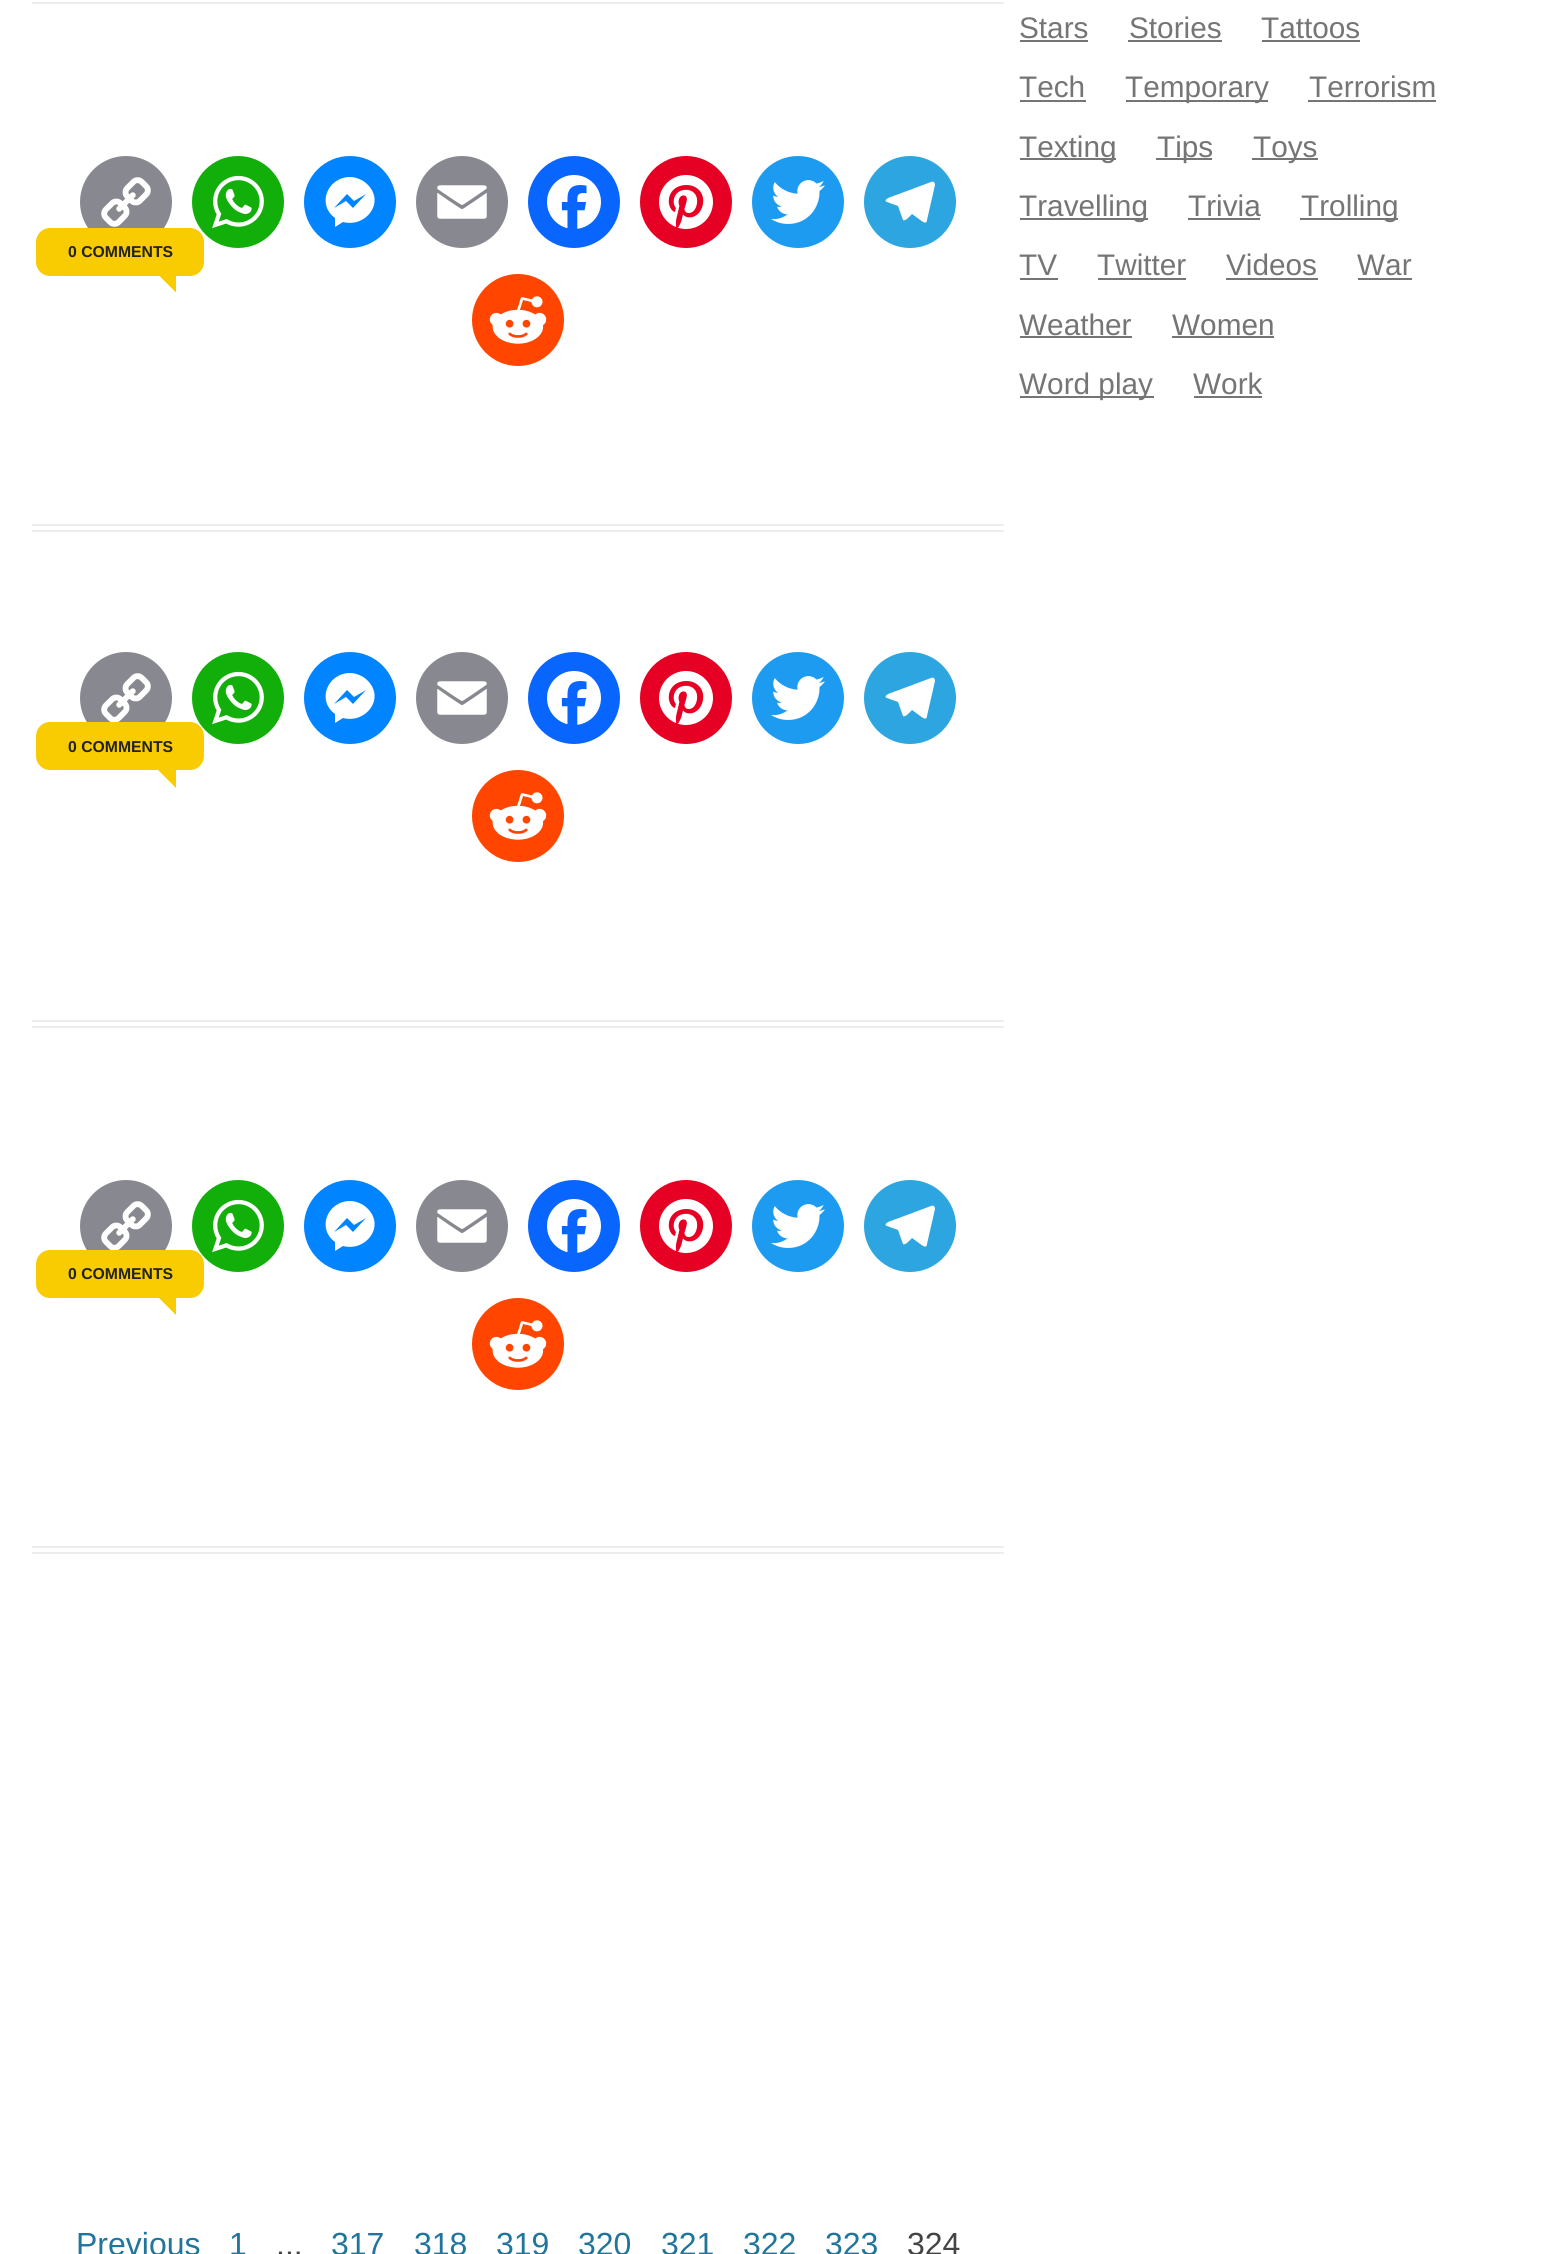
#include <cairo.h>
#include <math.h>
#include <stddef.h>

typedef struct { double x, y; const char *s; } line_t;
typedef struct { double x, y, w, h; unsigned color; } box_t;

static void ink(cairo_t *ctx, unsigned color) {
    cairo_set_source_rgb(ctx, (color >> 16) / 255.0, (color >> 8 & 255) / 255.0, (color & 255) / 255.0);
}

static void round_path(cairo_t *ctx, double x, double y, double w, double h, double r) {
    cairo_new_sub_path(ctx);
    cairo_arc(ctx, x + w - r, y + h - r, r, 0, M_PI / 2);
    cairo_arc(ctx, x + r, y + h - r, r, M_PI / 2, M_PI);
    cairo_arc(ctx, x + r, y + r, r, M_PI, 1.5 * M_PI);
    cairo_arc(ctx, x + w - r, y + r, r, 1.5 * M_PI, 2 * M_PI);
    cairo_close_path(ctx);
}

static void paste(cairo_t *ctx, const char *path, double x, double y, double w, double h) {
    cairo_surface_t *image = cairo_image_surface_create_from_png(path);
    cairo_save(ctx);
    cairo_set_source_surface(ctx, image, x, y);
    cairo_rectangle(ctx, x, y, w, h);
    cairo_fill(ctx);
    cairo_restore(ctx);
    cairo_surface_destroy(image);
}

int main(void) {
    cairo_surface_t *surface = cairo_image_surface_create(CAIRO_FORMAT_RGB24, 1559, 2254);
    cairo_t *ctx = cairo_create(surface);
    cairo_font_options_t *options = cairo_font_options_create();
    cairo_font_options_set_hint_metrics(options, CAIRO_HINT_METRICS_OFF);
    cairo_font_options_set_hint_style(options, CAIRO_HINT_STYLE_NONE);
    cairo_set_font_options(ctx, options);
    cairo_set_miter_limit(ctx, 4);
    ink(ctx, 0xFFFFFF);
    cairo_paint(ctx);
    {
        static const box_t items[] = {
            {32, 2, 972, 2, 0xEDEDED},
            {32, 524, 972, 2, 0xEDEDED},
            {32, 530, 972, 2, 0xEDEDED},
        };
        for (size_t i = 0; i < sizeof items / sizeof *items; i++) {
            ink(ctx, items[i].color);
            cairo_rectangle(ctx, items[i].x, items[i].y, items[i].w, items[i].h);
            cairo_fill(ctx);
        }
    }
    ink(ctx, 0x888990);
    cairo_arc(ctx, 126, 202, 46, 0, 2 * M_PI);
    cairo_fill(ctx);
    paste(ctx, "media/1.png", 101, 177, 50, 50);
    ink(ctx, 0x12AF0A);
    cairo_arc(ctx, 238, 202, 46, 0, 2 * M_PI);
    cairo_fill(ctx);
    paste(ctx, "media/2.png", 212, 175, 52, 53);
    ink(ctx, 0x0084FF);
    cairo_arc(ctx, 350, 202, 46, 0, 2 * M_PI);
    cairo_fill(ctx);
    ink(ctx, 0xFFFFFF);
    cairo_new_path(ctx);
    cairo_move_to(ctx, 350, 177);
    cairo_curve_to(ctx, 328, 177, 316, 204, 335, 218);
    cairo_line_to(ctx, 335, 227);
    cairo_line_to(ctx, 343, 222);
    cairo_curve_to(ctx, 366, 228, 386, 202, 367, 184);
    cairo_curve_to(ctx, 363, 180, 356, 177, 350, 177);
    cairo_move_to(ctx, 353, 208);
    cairo_line_to(ctx, 346, 201);
    cairo_line_to(ctx, 334, 208);
    cairo_line_to(ctx, 347, 194);
    cairo_line_to(ctx, 354, 201);
    cairo_line_to(ctx, 366, 194);
    cairo_close_path(ctx);
    cairo_fill(ctx);
    ink(ctx, 0x888990);
    cairo_arc(ctx, 462, 202, 46, 0, 2 * M_PI);
    cairo_fill(ctx);
    paste(ctx, "media/3.png", 437, 185, 50, 34);
    ink(ctx, 0x0866FF);
    cairo_arc(ctx, 574, 202, 46, 0, 2 * M_PI);
    cairo_fill(ctx);
    paste(ctx, "media/4.png", 547, 175, 54, 54);
    ink(ctx, 0xE60023);
    cairo_arc(ctx, 686, 202, 46, 0, 2 * M_PI);
    cairo_fill(ctx);
    paste(ctx, "media/5.png", 659, 175, 54, 54);
    ink(ctx, 0x1D9BF0);
    cairo_arc(ctx, 798, 202, 46, 0, 2 * M_PI);
    cairo_fill(ctx);
    paste(ctx, "media/6.png", 771, 180, 54, 44);
    ink(ctx, 0x2CA5E0);
    cairo_arc(ctx, 910, 202, 46, 0, 2 * M_PI);
    cairo_fill(ctx);
    ink(ctx, 0xFFFFFF);
    cairo_new_path(ctx);
    cairo_move_to(ctx, 931, 182);
    cairo_line_to(ctx, 888, 198);
    cairo_curve_to(ctx, 885, 200, 885, 201, 887, 202);
    cairo_line_to(ctx, 898, 206);
    cairo_line_to(ctx, 903, 220);
    cairo_curve_to(ctx, 905, 222, 911, 215, 912, 214);
    cairo_line_to(ctx, 923, 222);
    cairo_curve_to(ctx, 925, 223, 927, 223, 927, 220);
    cairo_line_to(ctx, 935, 185);
    cairo_curve_to(ctx, 935, 182, 933, 181, 931, 182);
    cairo_close_path(ctx);
    cairo_fill(ctx);
    ink(ctx, 0xFF4500);
    cairo_arc(ctx, 518, 320, 46, 0, 2 * M_PI);
    cairo_fill(ctx);
    paste(ctx, "media/7.png", 489, 296, 58, 48);
    ink(ctx, 0xF8CC00);
    round_path(ctx, 36, 228, 168, 48, 14);
    cairo_fill(ctx);
    cairo_select_font_face(ctx, "Liberation Sans", CAIRO_FONT_SLANT_NORMAL, CAIRO_FONT_WEIGHT_BOLD);
    cairo_set_font_size(ctx, 15.75);
    ink(ctx, 0x222222);
    cairo_move_to(ctx, 68, 257);
    cairo_show_text(ctx, "0 COMMENTS");
    ink(ctx, 0xF8CC00);
    cairo_new_path(ctx);
    cairo_move_to(ctx, 148, 264.5);
    cairo_line_to(ctx, 176, 264.5);
    cairo_line_to(ctx, 176, 292.5);
    cairo_close_path(ctx);
    cairo_fill(ctx);
    ink(ctx, 0xEDEDED);
    cairo_rectangle(ctx, 32, 1020, 972, 2);
    cairo_fill(ctx);
    cairo_rectangle(ctx, 32, 1026, 972, 2);
    cairo_fill(ctx);
    ink(ctx, 0x888990);
    cairo_arc(ctx, 126, 698, 46, 0, 2 * M_PI);
    cairo_fill(ctx);
    paste(ctx, "media/8.png", 101, 673, 50, 49);
    ink(ctx, 0x12AF0A);
    cairo_arc(ctx, 238, 698, 46, 0, 2 * M_PI);
    cairo_fill(ctx);
    paste(ctx, "media/2.png", 212, 671, 52, 53);
    ink(ctx, 0x0084FF);
    cairo_arc(ctx, 350, 698, 46, 0, 2 * M_PI);
    cairo_fill(ctx);
    ink(ctx, 0xFFFFFF);
    cairo_new_path(ctx);
    cairo_move_to(ctx, 350, 673);
    cairo_curve_to(ctx, 328, 673, 316, 700, 335, 714);
    cairo_line_to(ctx, 335, 723);
    cairo_line_to(ctx, 343, 718);
    cairo_curve_to(ctx, 366, 724, 386, 698, 367, 680);
    cairo_curve_to(ctx, 363, 676, 356, 673, 350, 673);
    cairo_move_to(ctx, 353, 704);
    cairo_line_to(ctx, 346, 697);
    cairo_line_to(ctx, 334, 704);
    cairo_line_to(ctx, 347, 690);
    cairo_line_to(ctx, 354, 697);
    cairo_line_to(ctx, 366, 690);
    cairo_close_path(ctx);
    cairo_fill(ctx);
    ink(ctx, 0x888990);
    cairo_arc(ctx, 462, 698, 46, 0, 2 * M_PI);
    cairo_fill(ctx);
    paste(ctx, "media/3.png", 437, 681, 50, 34);
    ink(ctx, 0x0866FF);
    cairo_arc(ctx, 574, 698, 46, 0, 2 * M_PI);
    cairo_fill(ctx);
    paste(ctx, "media/4.png", 547, 671, 54, 54);
    ink(ctx, 0xE60023);
    cairo_arc(ctx, 686, 698, 46, 0, 2 * M_PI);
    cairo_fill(ctx);
    paste(ctx, "media/5.png", 659, 671, 54, 54);
    ink(ctx, 0x1D9BF0);
    cairo_arc(ctx, 798, 698, 46, 0, 2 * M_PI);
    cairo_fill(ctx);
    paste(ctx, "media/6.png", 771, 676, 54, 44);
    ink(ctx, 0x2CA5E0);
    cairo_arc(ctx, 910, 698, 46, 0, 2 * M_PI);
    cairo_fill(ctx);
    ink(ctx, 0xFFFFFF);
    cairo_new_path(ctx);
    cairo_move_to(ctx, 931, 678);
    cairo_line_to(ctx, 888, 694);
    cairo_curve_to(ctx, 885, 696, 885, 697, 887, 698);
    cairo_line_to(ctx, 898, 702);
    cairo_line_to(ctx, 903, 716);
    cairo_curve_to(ctx, 905, 718, 911, 711, 912, 710);
    cairo_line_to(ctx, 923, 718);
    cairo_curve_to(ctx, 925, 719, 927, 719, 927, 716);
    cairo_line_to(ctx, 935, 681);
    cairo_curve_to(ctx, 935, 678, 933, 677, 931, 678);
    cairo_close_path(ctx);
    cairo_fill(ctx);
    ink(ctx, 0xFF4500);
    cairo_arc(ctx, 518, 816, 46, 0, 2 * M_PI);
    cairo_fill(ctx);
    paste(ctx, "media/7.png", 489, 792, 58, 48);
    ink(ctx, 0xF8CC00);
    round_path(ctx, 36, 722, 168, 48, 14);
    cairo_fill(ctx);
    ink(ctx, 0x222222);
    cairo_move_to(ctx, 68, 752);
    cairo_show_text(ctx, "0 COMMENTS");
    ink(ctx, 0xF8CC00);
    cairo_new_path(ctx);
    cairo_move_to(ctx, 148, 760);
    cairo_line_to(ctx, 176, 760);
    cairo_line_to(ctx, 176, 788);
    cairo_close_path(ctx);
    cairo_fill(ctx);
    ink(ctx, 0xEDEDED);
    cairo_rectangle(ctx, 32, 1546, 972, 2);
    cairo_fill(ctx);
    cairo_rectangle(ctx, 32, 1552, 972, 2);
    cairo_fill(ctx);
    ink(ctx, 0x888990);
    cairo_arc(ctx, 126, 1226, 46, 0, 2 * M_PI);
    cairo_fill(ctx);
    paste(ctx, "media/8.png", 101, 1201, 50, 49);
    ink(ctx, 0x12AF0A);
    cairo_arc(ctx, 238, 1226, 46, 0, 2 * M_PI);
    cairo_fill(ctx);
    paste(ctx, "media/2.png", 212, 1199, 52, 53);
    ink(ctx, 0x0084FF);
    cairo_arc(ctx, 350, 1226, 46, 0, 2 * M_PI);
    cairo_fill(ctx);
    ink(ctx, 0xFFFFFF);
    cairo_new_path(ctx);
    cairo_move_to(ctx, 350, 1201);
    cairo_curve_to(ctx, 328, 1201, 316, 1228, 335, 1242);
    cairo_line_to(ctx, 335, 1251);
    cairo_line_to(ctx, 343, 1246);
    cairo_curve_to(ctx, 366, 1252, 386, 1226, 367, 1208);
    cairo_curve_to(ctx, 363, 1204, 356, 1201, 350, 1201);
    cairo_move_to(ctx, 353, 1232);
    cairo_line_to(ctx, 346, 1225);
    cairo_line_to(ctx, 334, 1232);
    cairo_line_to(ctx, 347, 1218);
    cairo_line_to(ctx, 354, 1225);
    cairo_line_to(ctx, 366, 1218);
    cairo_close_path(ctx);
    cairo_fill(ctx);
    ink(ctx, 0x888990);
    cairo_arc(ctx, 462, 1226, 46, 0, 2 * M_PI);
    cairo_fill(ctx);
    paste(ctx, "media/3.png", 437, 1209, 50, 34);
    ink(ctx, 0x0866FF);
    cairo_arc(ctx, 574, 1226, 46, 0, 2 * M_PI);
    cairo_fill(ctx);
    paste(ctx, "media/4.png", 547, 1199, 54, 54);
    ink(ctx, 0xE60023);
    cairo_arc(ctx, 686, 1226, 46, 0, 2 * M_PI);
    cairo_fill(ctx);
    paste(ctx, "media/5.png", 659, 1199, 54, 54);
    ink(ctx, 0x1D9BF0);
    cairo_arc(ctx, 798, 1226, 46, 0, 2 * M_PI);
    cairo_fill(ctx);
    paste(ctx, "media/6.png", 771, 1204, 54, 44);
    ink(ctx, 0x2CA5E0);
    cairo_arc(ctx, 910, 1226, 46, 0, 2 * M_PI);
    cairo_fill(ctx);
    ink(ctx, 0xFFFFFF);
    cairo_new_path(ctx);
    cairo_move_to(ctx, 931, 1206);
    cairo_line_to(ctx, 888, 1222);
    cairo_curve_to(ctx, 885, 1224, 885, 1225, 887, 1226);
    cairo_line_to(ctx, 898, 1230);
    cairo_line_to(ctx, 903, 1244);
    cairo_curve_to(ctx, 905, 1246, 911, 1239, 912, 1238);
    cairo_line_to(ctx, 923, 1246);
    cairo_curve_to(ctx, 925, 1247, 927, 1247, 927, 1244);
    cairo_line_to(ctx, 935, 1209);
    cairo_curve_to(ctx, 935, 1206, 933, 1205, 931, 1206);
    cairo_close_path(ctx);
    cairo_fill(ctx);
    ink(ctx, 0xFF4500);
    cairo_arc(ctx, 518, 1344, 46, 0, 2 * M_PI);
    cairo_fill(ctx);
    paste(ctx, "media/7.png", 489, 1320, 58, 48);
    ink(ctx, 0xF8CC00);
    round_path(ctx, 36, 1250, 168, 48, 14);
    cairo_fill(ctx);
    ink(ctx, 0x222222);
    cairo_move_to(ctx, 68, 1279);
    cairo_show_text(ctx, "0 COMMENTS");
    ink(ctx, 0xF8CC00);
    cairo_new_path(ctx);
    cairo_move_to(ctx, 148, 1287);
    cairo_line_to(ctx, 176, 1287);
    cairo_line_to(ctx, 176, 1315);
    cairo_close_path(ctx);
    cairo_fill(ctx);
    cairo_select_font_face(ctx, "Liberation Sans", CAIRO_FONT_SLANT_NORMAL, CAIRO_FONT_WEIGHT_NORMAL);
    cairo_set_font_size(ctx, 32);
    ink(ctx, 0x21759B);
    cairo_move_to(ctx, 76, 2255);
    cairo_show_text(ctx, "Previous");
    cairo_move_to(ctx, 229, 2255);
    cairo_show_text(ctx, "1");
    ink(ctx, 0x444444);
    cairo_move_to(ctx, 276, 2255);
    cairo_show_text(ctx, "...");
    ink(ctx, 0x21759B);
    {
        static const line_t items[] = {
            {331, 2255, "317"},
            {414, 2255, "318"},
            {496, 2255, "319"},
            {578, 2255, "320"},
            {661, 2255, "321"},
            {743, 2255, "322"},
            {825, 2255, "323"},
        };
        for (size_t i = 0; i < sizeof items / sizeof *items; i++) {
            cairo_move_to(ctx, items[i].x, items[i].y);
            cairo_show_text(ctx, items[i].s);
        }
    }
    ink(ctx, 0x444444);
    cairo_move_to(ctx, 907, 2255);
    cairo_show_text(ctx, "324");
    cairo_set_font_size(ctx, 29.75);
    ink(ctx, 0x757575);
    cairo_move_to(ctx, 1019, 38);
    cairo_show_text(ctx, "Stars");
    cairo_rectangle(ctx, 1020, 40, 68, 2);
    cairo_fill(ctx);
    cairo_move_to(ctx, 1129, 38);
    cairo_show_text(ctx, "Stories");
    cairo_rectangle(ctx, 1128, 40, 94, 2);
    cairo_fill(ctx);
    cairo_move_to(ctx, 1261, 38);
    cairo_show_text(ctx, "Tattoos");
    cairo_rectangle(ctx, 1262, 40, 98, 2);
    cairo_fill(ctx);
    cairo_move_to(ctx, 1019, 97);
    cairo_show_text(ctx, "Tech");
    cairo_rectangle(ctx, 1020, 100, 66, 2);
    cairo_fill(ctx);
    cairo_rectangle(ctx, 1126, 100, 142, 2);
    cairo_fill(ctx);
    cairo_move_to(ctx, 1125, 97);
    cairo_show_text(ctx, "Temporary");
    cairo_move_to(ctx, 1309, 97);
    cairo_show_text(ctx, "Terrorism");
    cairo_rectangle(ctx, 1308, 100, 128, 2);
    cairo_fill(ctx);
    cairo_rectangle(ctx, 1020, 158, 96, 2);
    cairo_fill(ctx);
    cairo_move_to(ctx, 1019, 157);
    cairo_show_text(ctx, "Texting");
    cairo_rectangle(ctx, 1156, 158, 56, 2);
    cairo_fill(ctx);
    cairo_move_to(ctx, 1157, 157);
    cairo_show_text(ctx, "Tips");
    cairo_rectangle(ctx, 1252, 158, 66, 2);
    cairo_fill(ctx);
    cairo_move_to(ctx, 1253, 157);
    cairo_show_text(ctx, "Toys");
    cairo_rectangle(ctx, 1020, 218, 128, 2);
    cairo_fill(ctx);
    cairo_move_to(ctx, 1019, 216);
    cairo_show_text(ctx, "Travelling");
    cairo_move_to(ctx, 1188, 216);
    cairo_show_text(ctx, "Trivia");
    cairo_rectangle(ctx, 1188, 218, 72, 2);
    cairo_fill(ctx);
    cairo_rectangle(ctx, 1300, 218, 98, 2);
    cairo_fill(ctx);
    cairo_move_to(ctx, 1301, 216);
    cairo_show_text(ctx, "Trolling");
    cairo_move_to(ctx, 1019, 275);
    cairo_show_text(ctx, "TV");
    cairo_rectangle(ctx, 1020, 278, 38, 2);
    cairo_fill(ctx);
    cairo_move_to(ctx, 1097, 275);
    cairo_show_text(ctx, "Twitter");
    cairo_rectangle(ctx, 1098, 278, 88, 2);
    cairo_fill(ctx);
    cairo_move_to(ctx, 1226, 275);
    cairo_show_text(ctx, "Videos");
    cairo_rectangle(ctx, 1226, 278, 92, 2);
    cairo_fill(ctx);
    cairo_move_to(ctx, 1357, 275);
    cairo_show_text(ctx, "War");
    cairo_rectangle(ctx, 1358, 278, 54, 2);
    cairo_fill(ctx);
    cairo_move_to(ctx, 1019, 335);
    cairo_show_text(ctx, "Weather");
    cairo_rectangle(ctx, 1020, 336, 112, 2);
    cairo_fill(ctx);
    cairo_move_to(ctx, 1172, 335);
    cairo_show_text(ctx, "Women");
    cairo_rectangle(ctx, 1172, 336, 102, 2);
    cairo_fill(ctx);
    cairo_rectangle(ctx, 1020, 396, 134, 2);
    cairo_fill(ctx);
    cairo_move_to(ctx, 1019, 394);
    cairo_show_text(ctx, "Word play");
    cairo_move_to(ctx, 1193, 394);
    cairo_show_text(ctx, "Work");
    cairo_rectangle(ctx, 1194, 396, 68, 2);
    cairo_fill(ctx);
    cairo_surface_write_to_png(surface, "image.png");
    cairo_font_options_destroy(options);
    cairo_destroy(ctx);
    cairo_surface_destroy(surface);
    return 0;
}
